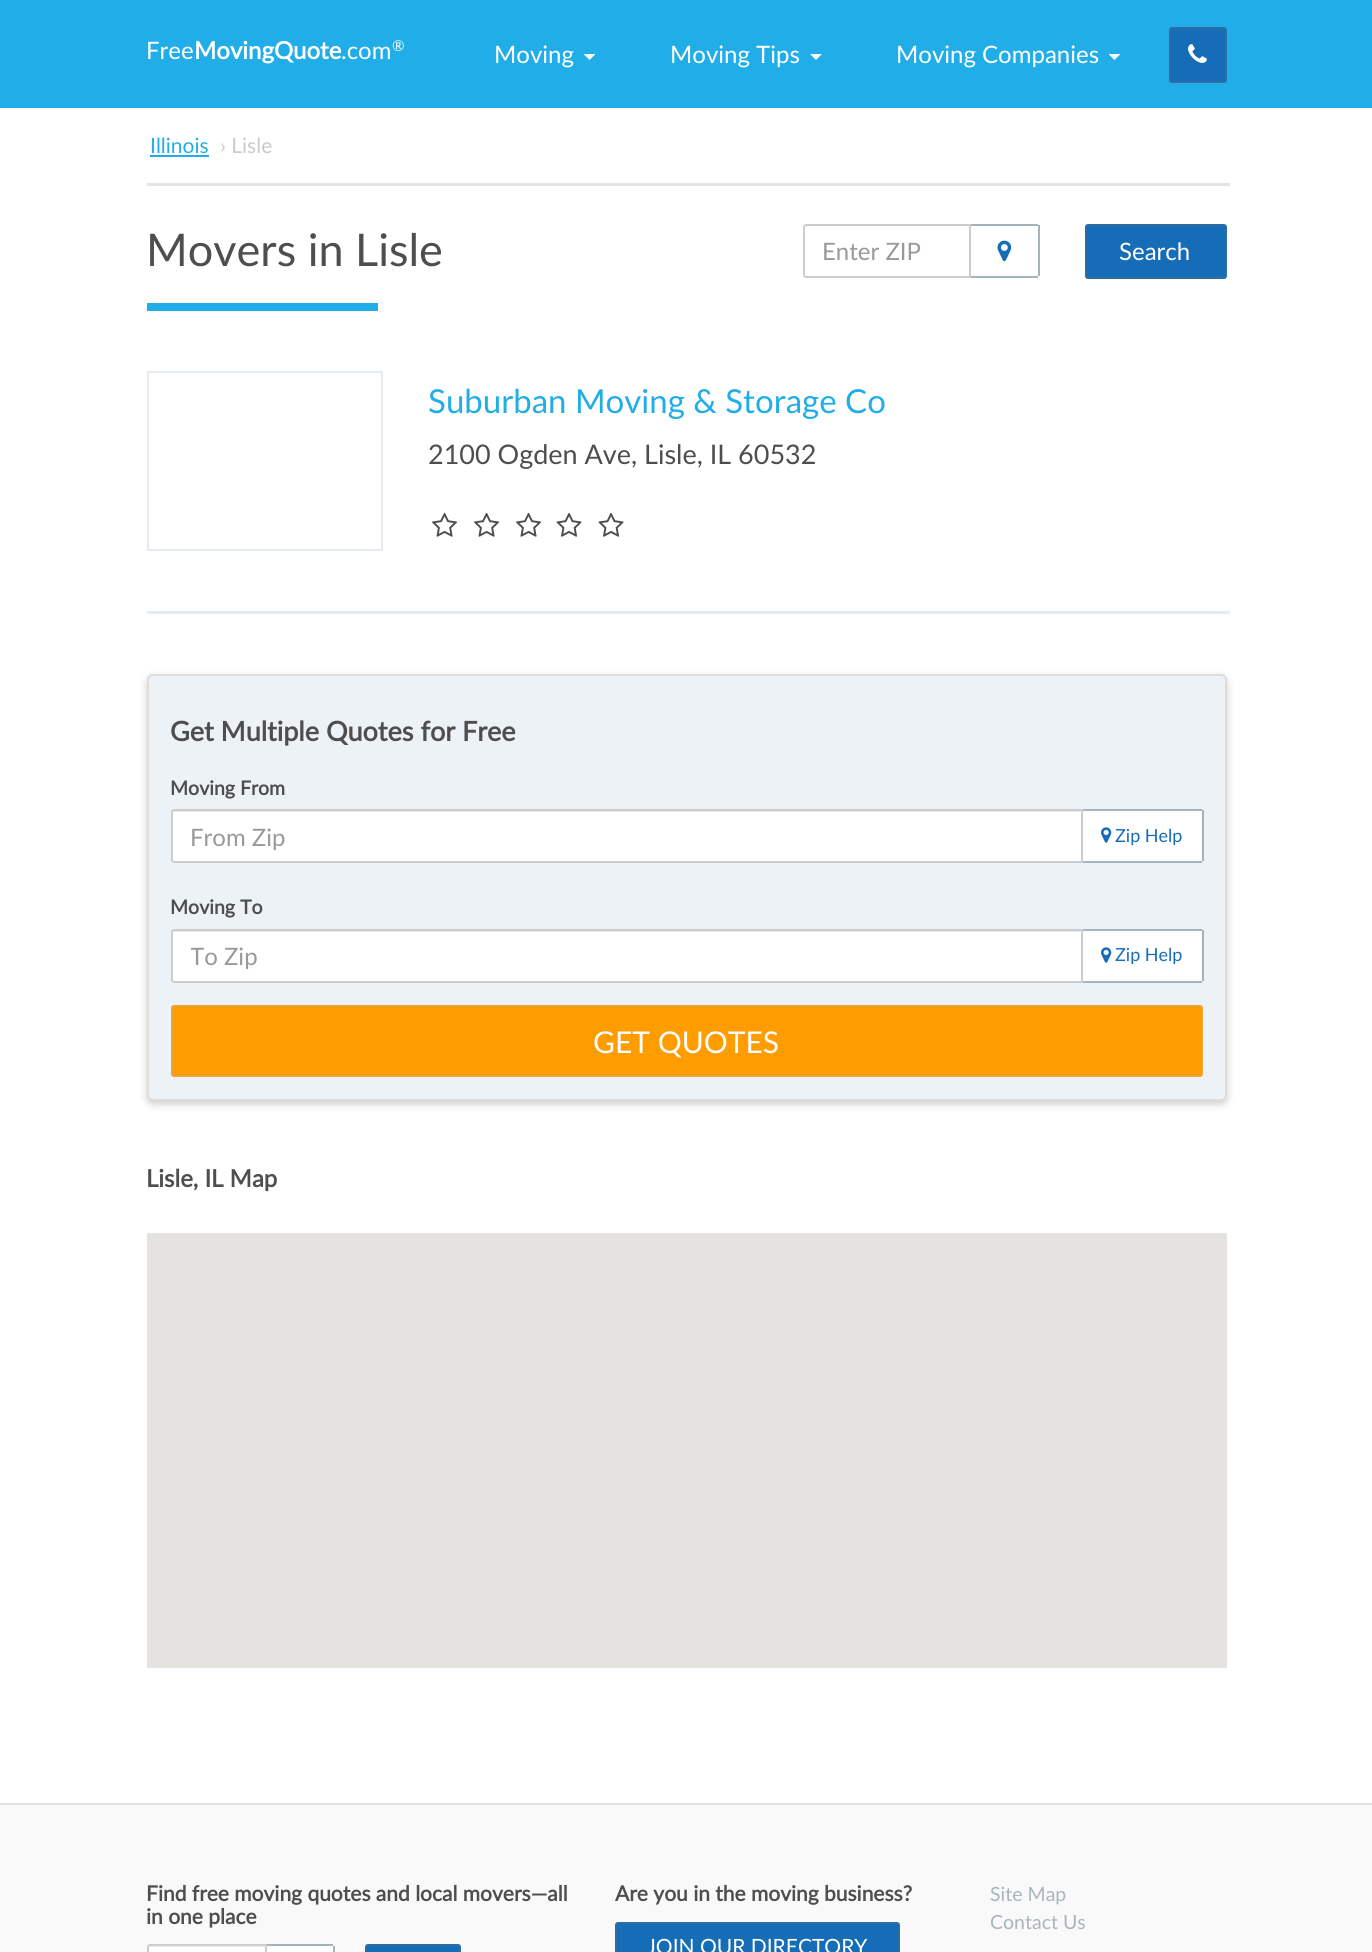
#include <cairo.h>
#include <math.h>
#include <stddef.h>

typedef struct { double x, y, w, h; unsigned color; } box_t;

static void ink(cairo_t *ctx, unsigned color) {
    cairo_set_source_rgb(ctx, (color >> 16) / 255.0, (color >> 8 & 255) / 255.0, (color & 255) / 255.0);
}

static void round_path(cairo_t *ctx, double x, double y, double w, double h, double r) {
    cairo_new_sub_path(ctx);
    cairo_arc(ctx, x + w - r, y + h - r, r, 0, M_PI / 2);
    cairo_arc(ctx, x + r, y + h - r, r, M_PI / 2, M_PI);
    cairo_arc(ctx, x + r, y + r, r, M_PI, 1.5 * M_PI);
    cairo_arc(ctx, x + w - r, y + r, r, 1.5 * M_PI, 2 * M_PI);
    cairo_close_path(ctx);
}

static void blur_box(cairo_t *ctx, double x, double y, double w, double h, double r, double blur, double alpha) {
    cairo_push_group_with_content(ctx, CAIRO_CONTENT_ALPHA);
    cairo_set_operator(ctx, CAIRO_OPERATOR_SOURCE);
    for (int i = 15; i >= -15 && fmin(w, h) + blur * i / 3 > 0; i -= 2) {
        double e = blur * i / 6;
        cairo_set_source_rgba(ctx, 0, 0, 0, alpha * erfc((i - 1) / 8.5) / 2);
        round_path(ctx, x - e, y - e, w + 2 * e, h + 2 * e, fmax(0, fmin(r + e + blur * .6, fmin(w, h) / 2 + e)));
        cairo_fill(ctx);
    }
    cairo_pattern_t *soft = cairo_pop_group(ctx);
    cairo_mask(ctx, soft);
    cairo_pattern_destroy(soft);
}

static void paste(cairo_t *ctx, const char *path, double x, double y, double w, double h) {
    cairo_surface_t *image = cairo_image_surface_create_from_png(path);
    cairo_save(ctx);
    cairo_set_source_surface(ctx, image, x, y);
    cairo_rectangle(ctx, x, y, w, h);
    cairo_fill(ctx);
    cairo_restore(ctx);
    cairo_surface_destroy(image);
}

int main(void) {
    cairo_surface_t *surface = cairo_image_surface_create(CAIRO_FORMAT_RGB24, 1372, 1952);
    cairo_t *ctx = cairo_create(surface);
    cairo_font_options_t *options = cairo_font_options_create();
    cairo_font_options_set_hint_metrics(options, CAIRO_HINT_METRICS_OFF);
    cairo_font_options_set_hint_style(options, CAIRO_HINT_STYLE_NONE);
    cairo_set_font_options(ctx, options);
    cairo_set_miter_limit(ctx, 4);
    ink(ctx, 0xF8F9F8);
    cairo_paint(ctx);
    ink(ctx, 0x21AEE8);
    cairo_rectangle(ctx, 0, 0, 1372, 108);
    cairo_fill(ctx);
    cairo_select_font_face(ctx, "Lato", CAIRO_FONT_SLANT_NORMAL, CAIRO_FONT_WEIGHT_NORMAL);
    cairo_set_font_size(ctx, 24);
    ink(ctx, 0xFFFFFF);
    cairo_move_to(ctx, 146, 59);
    cairo_show_text(ctx, "Free");
    cairo_select_font_face(ctx, "Lato", CAIRO_FONT_SLANT_NORMAL, CAIRO_FONT_WEIGHT_BOLD);
    cairo_move_to(ctx, 194, 59);
    cairo_show_text(ctx, "MovingQuote");
    cairo_select_font_face(ctx, "Lato", CAIRO_FONT_SLANT_NORMAL, CAIRO_FONT_WEIGHT_NORMAL);
    cairo_move_to(ctx, 341, 59);
    cairo_show_text(ctx, ".com");
    cairo_set_font_size(ctx, 15);
    cairo_move_to(ctx, 392, 51);
    cairo_show_text(ctx, "®");
    cairo_set_font_size(ctx, 24);
    cairo_move_to(ctx, 494, 63);
    cairo_show_text(ctx, "Moving");
    cairo_new_path(ctx);
    cairo_move_to(ctx, 583.5, 54);
    cairo_line_to(ctx, 595.5, 54);
    cairo_line_to(ctx, 589.5, 60);
    cairo_close_path(ctx);
    cairo_fill(ctx);
    cairo_move_to(ctx, 670, 63);
    cairo_show_text(ctx, "Moving Tips");
    cairo_new_path(ctx);
    cairo_move_to(ctx, 810, 54);
    cairo_line_to(ctx, 822, 54);
    cairo_line_to(ctx, 816, 60);
    cairo_close_path(ctx);
    cairo_fill(ctx);
    cairo_move_to(ctx, 896, 63);
    cairo_show_text(ctx, "Moving Companies");
    cairo_new_path(ctx);
    cairo_move_to(ctx, 1108.5, 54);
    cairo_line_to(ctx, 1120.5, 54);
    cairo_line_to(ctx, 1114.5, 60);
    cairo_close_path(ctx);
    cairo_fill(ctx);
    ink(ctx, 0x166DB7);
    round_path(ctx, 1170, 28, 56, 54, 2);
    cairo_fill_preserve(ctx);
    ink(ctx, 0x2E6DA4);
    cairo_stroke(ctx);
    paste(ctx, "media/1.png", 1188, 44, 19, 19);
    ink(ctx, 0xFFFFFF);
    cairo_rectangle(ctx, 0, 108, 1372, 1695);
    cairo_fill(ctx);
    cairo_set_font_size(ctx, 21);
    ink(ctx, 0x21AEE8);
    cairo_move_to(ctx, 150, 153);
    cairo_show_text(ctx, "Illinois");
    cairo_rectangle(ctx, 150, 155, 59, 2);
    cairo_fill(ctx);
    ink(ctx, 0xC9CACB);
    cairo_move_to(ctx, 220, 153);
    cairo_show_text(ctx, "› Lisle");
    ink(ctx, 0xE0E1E0);
    cairo_rectangle(ctx, 0, 1803, 1372, 2);
    cairo_fill(ctx);
    ink(ctx, 0xE2E3E5);
    cairo_rectangle(ctx, 147, 183, 1083, 3);
    cairo_fill(ctx);
    cairo_set_font_size(ctx, 45);
    ink(ctx, 0x4E4E4E);
    cairo_move_to(ctx, 146, 266);
    cairo_show_text(ctx, "Movers in Lisle");
    ink(ctx, 0x21AEE8);
    cairo_rectangle(ctx, 147, 303, 231, 8);
    cairo_fill(ctx);
    cairo_new_path(ctx);
    cairo_move_to(ctx, 806, 225);
    cairo_line_to(ctx, 970, 225);
    cairo_line_to(ctx, 970, 277);
    cairo_line_to(ctx, 806, 277);
    cairo_curve_to(ctx, 805, 277, 804, 276, 804, 275);
    cairo_line_to(ctx, 804, 227);
    cairo_curve_to(ctx, 804, 226, 805, 225, 806, 225);
    cairo_close_path(ctx);
    ink(ctx, 0xCCCCCC);
    cairo_stroke(ctx);
    cairo_set_font_size(ctx, 24);
    ink(ctx, 0x999999);
    cairo_move_to(ctx, 822, 260);
    cairo_show_text(ctx, "Enter ZIP");
    {
        static const box_t items[] = {
            {971, 224, 67, 2, 0xA3B4BB},
            {1038, 225, 2, 51, 0xA3B4BB},
            {971, 276, 67, 2, 0xA3B4BB},
        };
        for (size_t i = 0; i < sizeof items / sizeof *items; i++) {
            ink(ctx, items[i].color);
            cairo_rectangle(ctx, items[i].x, items[i].y, items[i].w, items[i].h);
            cairo_fill(ctx);
        }
    }
    paste(ctx, "media/2.png", 997, 240, 15, 22);
    ink(ctx, 0x166DB7);
    round_path(ctx, 1086, 225, 140, 53, 2);
    cairo_fill_preserve(ctx);
    ink(ctx, 0x2E6DA4);
    cairo_stroke(ctx);
    ink(ctx, 0xFFFFFF);
    cairo_move_to(ctx, 1119, 260);
    cairo_show_text(ctx, "Search");
    cairo_rectangle(ctx, 148, 372, 234, 178);
    ink(ctx, 0xE5ECEF);
    cairo_stroke(ctx);
    cairo_set_font_size(ctx, 33);
    ink(ctx, 0x21AEE8);
    cairo_move_to(ctx, 428, 413);
    cairo_show_text(ctx, "Suburban Moving & Storage Co");
    cairo_set_font_size(ctx, 27);
    ink(ctx, 0x4E4E4E);
    cairo_move_to(ctx, 428, 464);
    cairo_show_text(ctx, "2100 Ogden Ave, Lisle, IL 60532");
    paste(ctx, "media/3.png", 432, 512, 25, 25);
    paste(ctx, "media/3.png", 474, 512, 25, 25);
    paste(ctx, "media/3.png", 516, 512, 25, 25);
    paste(ctx, "media/4.png", 556, 512, 26, 25);
    paste(ctx, "media/4.png", 598, 512, 26, 25);
    ink(ctx, 0xE5ECEF);
    cairo_rectangle(ctx, 147, 611, 1083, 3);
    cairo_fill(ctx);
    ink(ctx, 0x000000);
    blur_box(ctx, 147, 677, 1080, 427, 6, 4, 0.2);
    ink(ctx, 0xEDF2F7);
    round_path(ctx, 148, 675, 1078, 425, 5);
    cairo_fill_preserve(ctx);
    ink(ctx, 0xDDDDDD);
    cairo_stroke(ctx);
    cairo_select_font_face(ctx, "Lato", CAIRO_FONT_SLANT_NORMAL, CAIRO_FONT_WEIGHT_BOLD);
    ink(ctx, 0x4E4E4E);
    cairo_move_to(ctx, 170, 741);
    cairo_show_text(ctx, "Get Multiple Quotes for Free");
    cairo_set_font_size(ctx, 19.5);
    cairo_move_to(ctx, 170, 795);
    cairo_show_text(ctx, "Moving From");
    ink(ctx, 0xFFFFFF);
    cairo_new_path(ctx);
    cairo_move_to(ctx, 174, 809);
    cairo_line_to(ctx, 1083, 809);
    cairo_line_to(ctx, 1083, 863);
    cairo_line_to(ctx, 174, 863);
    cairo_curve_to(ctx, 172.5, 863, 171, 861.5, 171, 860);
    cairo_line_to(ctx, 171, 812);
    cairo_curve_to(ctx, 171, 810.5, 172.5, 809, 174, 809);
    cairo_close_path(ctx);
    cairo_fill(ctx);
    ink(ctx, 0xECECEC);
    cairo_new_path(ctx);
    cairo_move_to(ctx, 174, 812);
    cairo_line_to(ctx, 1082, 812);
    cairo_line_to(ctx, 1082, 810);
    cairo_line_to(ctx, 174, 810);
    cairo_line_to(ctx, 173, 811);
    cairo_line_to(ctx, 173, 812);
    cairo_close_path(ctx);
    cairo_fill(ctx);
    cairo_new_path(ctx);
    cairo_move_to(ctx, 174, 810);
    cairo_line_to(ctx, 1082, 810);
    cairo_line_to(ctx, 1082, 862);
    cairo_line_to(ctx, 174, 862);
    cairo_curve_to(ctx, 173, 862, 172, 861, 172, 860);
    cairo_line_to(ctx, 172, 812);
    cairo_curve_to(ctx, 172, 811, 173, 810, 174, 810);
    cairo_close_path(ctx);
    ink(ctx, 0xCCCCCC);
    cairo_stroke(ctx);
    cairo_select_font_face(ctx, "Lato", CAIRO_FONT_SLANT_NORMAL, CAIRO_FONT_WEIGHT_NORMAL);
    cairo_set_font_size(ctx, 24);
    ink(ctx, 0x999999);
    cairo_move_to(ctx, 190, 846);
    cairo_show_text(ctx, "From Zip");
    ink(ctx, 0xFFFFFF);
    cairo_new_path(ctx);
    cairo_move_to(ctx, 1083, 809);
    cairo_line_to(ctx, 1200, 809);
    cairo_curve_to(ctx, 1201.5, 809, 1203, 810.5, 1203, 812);
    cairo_line_to(ctx, 1203, 860);
    cairo_curve_to(ctx, 1203, 861.5, 1201.5, 863, 1200, 863);
    cairo_line_to(ctx, 1083, 863);
    cairo_close_path(ctx);
    cairo_fill(ctx);
    {
        static const box_t items[] = {
            {1083, 809, 119, 2, 0xA3B4BB},
            {1202, 810, 2, 51, 0xA3B4BB},
            {1083, 861, 119, 2, 0xA3B4BB},
        };
        for (size_t i = 0; i < sizeof items / sizeof *items; i++) {
            ink(ctx, items[i].color);
            cairo_rectangle(ctx, items[i].x, items[i].y, items[i].w, items[i].h);
            cairo_fill(ctx);
        }
    }
    paste(ctx, "media/5.png", 1101, 827, 11, 16);
    cairo_set_font_size(ctx, 18);
    ink(ctx, 0x166DB7);
    cairo_move_to(ctx, 1115, 842);
    cairo_show_text(ctx, "Zip Help");
    cairo_select_font_face(ctx, "Lato", CAIRO_FONT_SLANT_NORMAL, CAIRO_FONT_WEIGHT_BOLD);
    cairo_set_font_size(ctx, 19.5);
    ink(ctx, 0x4E4E4E);
    cairo_move_to(ctx, 170, 914);
    cairo_show_text(ctx, "Moving To");
    ink(ctx, 0xFFFFFF);
    cairo_new_path(ctx);
    cairo_move_to(ctx, 174, 929);
    cairo_line_to(ctx, 1083, 929);
    cairo_line_to(ctx, 1083, 983);
    cairo_line_to(ctx, 174, 983);
    cairo_curve_to(ctx, 172.5, 983, 171, 981.5, 171, 980);
    cairo_line_to(ctx, 171, 932);
    cairo_curve_to(ctx, 171, 930.5, 172.5, 929, 174, 929);
    cairo_close_path(ctx);
    cairo_fill(ctx);
    ink(ctx, 0xECECEC);
    cairo_new_path(ctx);
    cairo_move_to(ctx, 174, 932);
    cairo_line_to(ctx, 1082, 932);
    cairo_line_to(ctx, 1082, 930);
    cairo_line_to(ctx, 174, 930);
    cairo_line_to(ctx, 173, 931);
    cairo_line_to(ctx, 173, 932);
    cairo_close_path(ctx);
    cairo_fill(ctx);
    cairo_new_path(ctx);
    cairo_move_to(ctx, 174, 930);
    cairo_line_to(ctx, 1082, 930);
    cairo_line_to(ctx, 1082, 982);
    cairo_line_to(ctx, 174, 982);
    cairo_curve_to(ctx, 173, 982, 172, 981, 172, 980);
    cairo_line_to(ctx, 172, 932);
    cairo_curve_to(ctx, 172, 931, 173, 930, 174, 930);
    cairo_close_path(ctx);
    ink(ctx, 0xCCCCCC);
    cairo_stroke(ctx);
    cairo_save(ctx);
    cairo_rectangle(ctx, 191, 941, 873, 28);
    cairo_clip(ctx);
    cairo_select_font_face(ctx, "Lato", CAIRO_FONT_SLANT_NORMAL, CAIRO_FONT_WEIGHT_NORMAL);
    cairo_set_font_size(ctx, 24);
    ink(ctx, 0x999999);
    cairo_move_to(ctx, 190, 965);
    cairo_show_text(ctx, "To Zip");
    cairo_restore(ctx);
    ink(ctx, 0xFFFFFF);
    cairo_new_path(ctx);
    cairo_move_to(ctx, 1083, 929);
    cairo_line_to(ctx, 1200, 929);
    cairo_curve_to(ctx, 1201.5, 929, 1203, 930.5, 1203, 932);
    cairo_line_to(ctx, 1203, 980);
    cairo_curve_to(ctx, 1203, 981.5, 1201.5, 983, 1200, 983);
    cairo_line_to(ctx, 1083, 983);
    cairo_close_path(ctx);
    cairo_fill(ctx);
    {
        static const box_t items[] = {
            {1083, 929, 119, 2, 0xA3B4BB},
            {1202, 930, 2, 51, 0xA3B4BB},
            {1083, 981, 119, 2, 0xA3B4BB},
        };
        for (size_t i = 0; i < sizeof items / sizeof *items; i++) {
            ink(ctx, items[i].color);
            cairo_rectangle(ctx, items[i].x, items[i].y, items[i].w, items[i].h);
            cairo_fill(ctx);
        }
    }
    paste(ctx, "media/5.png", 1101, 947, 11, 16);
    cairo_select_font_face(ctx, "Lato", CAIRO_FONT_SLANT_NORMAL, CAIRO_FONT_WEIGHT_NORMAL);
    cairo_set_font_size(ctx, 18);
    ink(ctx, 0x166DB7);
    cairo_move_to(ctx, 1115, 961);
    cairo_show_text(ctx, "Zip Help");
    ink(ctx, 0xFF9C00);
    round_path(ctx, 172, 1006, 1030, 70, 2);
    cairo_fill_preserve(ctx);
    ink(ctx, 0xEEA236);
    cairo_stroke(ctx);
    cairo_set_font_size(ctx, 30);
    ink(ctx, 0xFFFFFF);
    cairo_move_to(ctx, 593, 1053);
    cairo_show_text(ctx, "GET QUOTES");
    cairo_select_font_face(ctx, "Lato", CAIRO_FONT_SLANT_NORMAL, CAIRO_FONT_WEIGHT_BOLD);
    cairo_set_font_size(ctx, 24);
    ink(ctx, 0x4E4E4E);
    cairo_move_to(ctx, 146, 1187);
    cairo_show_text(ctx, "Lisle, IL Map");
    ink(ctx, 0xE5E3DF);
    cairo_rectangle(ctx, 147, 1233, 1080, 435);
    cairo_fill(ctx);
    cairo_set_font_size(ctx, 21);
    ink(ctx, 0x4E4E4E);
    cairo_move_to(ctx, 146, 1901);
    cairo_show_text(ctx, "Find free moving quotes and local movers—all");
    cairo_move_to(ctx, 146, 1924);
    cairo_show_text(ctx, "in one place");
    ink(ctx, 0xFFFFFF);
    cairo_new_path(ctx);
    cairo_move_to(ctx, 150, 1944);
    cairo_line_to(ctx, 267, 1944);
    cairo_line_to(ctx, 267, 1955);
    cairo_line_to(ctx, 150, 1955);
    cairo_curve_to(ctx, 148.5, 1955, 147, 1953.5, 147, 1952);
    cairo_line_to(ctx, 147, 1947);
    cairo_curve_to(ctx, 147, 1945.5, 148.5, 1944, 150, 1944);
    cairo_close_path(ctx);
    cairo_fill(ctx);
    ink(ctx, 0xECECEC);
    cairo_new_path(ctx);
    cairo_move_to(ctx, 150, 1947);
    cairo_line_to(ctx, 266, 1947);
    cairo_line_to(ctx, 266, 1946);
    cairo_line_to(ctx, 150, 1946);
    cairo_line_to(ctx, 149, 1947);
    cairo_close_path(ctx);
    cairo_fill(ctx);
    cairo_new_path(ctx);
    cairo_move_to(ctx, 150, 1945);
    cairo_line_to(ctx, 266, 1945);
    cairo_line_to(ctx, 266, 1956);
    cairo_line_to(ctx, 150, 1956);
    cairo_curve_to(ctx, 149, 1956, 148, 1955, 148, 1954);
    cairo_line_to(ctx, 148, 1947);
    cairo_curve_to(ctx, 148, 1946, 149, 1945, 150, 1945);
    cairo_close_path(ctx);
    ink(ctx, 0xCCCCCC);
    cairo_stroke(ctx);
    ink(ctx, 0xFFFFFF);
    cairo_new_path(ctx);
    cairo_move_to(ctx, 267, 1944);
    cairo_line_to(ctx, 332, 1944);
    cairo_curve_to(ctx, 333.5, 1944, 335, 1945.5, 335, 1947);
    cairo_line_to(ctx, 335, 1952);
    cairo_curve_to(ctx, 335, 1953.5, 333.5, 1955, 332, 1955);
    cairo_line_to(ctx, 267, 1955);
    cairo_close_path(ctx);
    cairo_fill(ctx);
    ink(ctx, 0xA3B4BB);
    cairo_rectangle(ctx, 267, 1944, 66, 2);
    cairo_fill(ctx);
    cairo_rectangle(ctx, 333, 1946, 2, 6);
    cairo_fill(ctx);
    ink(ctx, 0x166DB7);
    round_path(ctx, 366, 1945, 94, 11, 2);
    cairo_fill_preserve(ctx);
    ink(ctx, 0x2E6DA4);
    cairo_stroke(ctx);
    ink(ctx, 0x4E4E4E);
    cairo_move_to(ctx, 615, 1901);
    cairo_show_text(ctx, "Are you in the moving business?");
    ink(ctx, 0x166DB7);
    round_path(ctx, 616, 1923, 283, 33, 2);
    cairo_fill_preserve(ctx);
    ink(ctx, 0x2E6DA4);
    cairo_stroke(ctx);
    cairo_select_font_face(ctx, "Lato", CAIRO_FONT_SLANT_NORMAL, CAIRO_FONT_WEIGHT_NORMAL);
    ink(ctx, 0xFFFFFF);
    cairo_move_to(ctx, 647, 1954);
    cairo_show_text(ctx, "JOIN OUR DIRECTORY");
    cairo_set_font_size(ctx, 19.5);
    ink(ctx, 0xA8B6BC);
    cairo_move_to(ctx, 990, 1901);
    cairo_show_text(ctx, "Site Map");
    cairo_move_to(ctx, 990, 1929);
    cairo_show_text(ctx, "Contact Us");
    cairo_surface_write_to_png(surface, "image.png");
    cairo_font_options_destroy(options);
    cairo_destroy(ctx);
    cairo_surface_destroy(surface);
    return 0;
}
